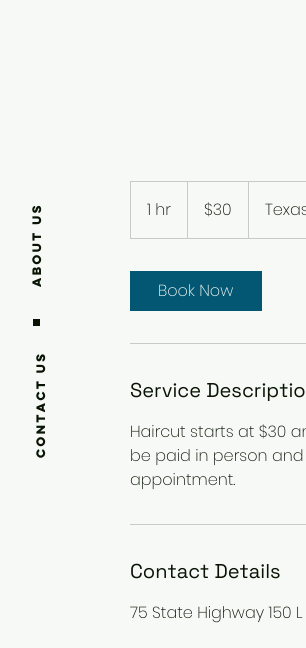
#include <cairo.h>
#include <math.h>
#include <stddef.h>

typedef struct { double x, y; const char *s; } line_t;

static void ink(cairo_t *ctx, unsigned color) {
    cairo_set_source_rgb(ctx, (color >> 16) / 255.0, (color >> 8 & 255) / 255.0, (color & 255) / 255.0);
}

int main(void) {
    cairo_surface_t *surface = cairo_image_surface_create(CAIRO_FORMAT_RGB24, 306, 648);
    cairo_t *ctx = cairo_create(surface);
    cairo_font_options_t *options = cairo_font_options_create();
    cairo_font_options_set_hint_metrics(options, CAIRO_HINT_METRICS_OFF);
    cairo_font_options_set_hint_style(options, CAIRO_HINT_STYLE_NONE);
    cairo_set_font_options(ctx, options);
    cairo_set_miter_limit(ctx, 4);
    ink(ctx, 0xF6F9F5);
    cairo_paint(ctx);
    cairo_select_font_face(ctx, "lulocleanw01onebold", CAIRO_FONT_SLANT_NORMAL, CAIRO_FONT_WEIGHT_BOLD);
    cairo_set_font_size(ctx, 11);
    ink(ctx, 0x091405);
    cairo_save(ctx);
    cairo_translate(ctx, 41, 287);
    cairo_rotate(ctx, -90 * M_PI / 180);
    cairo_move_to(ctx, 0, 0);
    cairo_show_text(ctx, "About us");
    cairo_restore(ctx);
    cairo_rectangle(ctx, 33, 319, 7, 7);
    cairo_fill(ctx);
    cairo_save(ctx);
    cairo_translate(ctx, 45, 458);
    cairo_rotate(ctx, -90 * M_PI / 180);
    cairo_move_to(ctx, 0, 0);
    cairo_show_text(ctx, "Contact us");
    cairo_restore(ctx);
    cairo_rectangle(ctx, 130.5, 181.5, 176, 57);
    ink(ctx, 0xC7CBC5);
    cairo_set_line_width(ctx, 1);
    cairo_stroke(ctx);
    cairo_select_font_face(ctx, "Poppins ExtraLight", CAIRO_FONT_SLANT_NORMAL, CAIRO_FONT_WEIGHT_NORMAL);
    cairo_set_font_size(ctx, 16);
    ink(ctx, 0x091405);
    cairo_move_to(ctx, 147, 215);
    cairo_show_text(ctx, "1 hr");
    ink(ctx, 0xC7CBC5);
    cairo_new_path(ctx);
    cairo_move_to(ctx, 187, 238);
    cairo_line_to(ctx, 187, 181);
    cairo_line_to(ctx, 188, 182);
    cairo_line_to(ctx, 188, 238);
    cairo_close_path(ctx);
    cairo_fill(ctx);
    ink(ctx, 0x091405);
    cairo_move_to(ctx, 204, 215);
    cairo_show_text(ctx, "$30");
    ink(ctx, 0xC7CBC5);
    cairo_new_path(ctx);
    cairo_move_to(ctx, 248, 238);
    cairo_line_to(ctx, 248, 181);
    cairo_line_to(ctx, 249, 182);
    cairo_line_to(ctx, 249, 238);
    cairo_close_path(ctx);
    cairo_fill(ctx);
    ink(ctx, 0x091405);
    cairo_move_to(ctx, 265, 215);
    cairo_show_text(ctx, "Texas");
    ink(ctx, 0x035772);
    cairo_rectangle(ctx, 130, 271, 132, 40);
    cairo_fill(ctx);
    ink(ctx, 0xF6F9F5);
    cairo_move_to(ctx, 158, 296);
    cairo_show_text(ctx, "Book Now");
    ink(ctx, 0xC7CBC5);
    cairo_rectangle(ctx, 130, 343, 176, 1);
    cairo_fill(ctx);
    cairo_select_font_face(ctx, "Space Grotesk", CAIRO_FONT_SLANT_NORMAL, CAIRO_FONT_WEIGHT_NORMAL);
    cairo_set_font_size(ctx, 20);
    ink(ctx, 0x091405);
    cairo_move_to(ctx, 130, 397);
    cairo_show_text(ctx, "Service Descriptio");
    cairo_select_font_face(ctx, "Poppins ExtraLight", CAIRO_FONT_SLANT_NORMAL, CAIRO_FONT_WEIGHT_NORMAL);
    cairo_set_font_size(ctx, 16);
    {
        static const line_t items[] = {
            {130, 437, "Haircut starts at $30 an"},
            {130, 461, "be paid in person and"},
            {130, 485, "appointment."},
        };
        for (size_t i = 0; i < sizeof items / sizeof *items; i++) {
            cairo_move_to(ctx, items[i].x, items[i].y);
            cairo_show_text(ctx, items[i].s);
        }
    }
    ink(ctx, 0xC7CBC5);
    cairo_rectangle(ctx, 130, 524, 176, 1);
    cairo_fill(ctx);
    cairo_select_font_face(ctx, "Space Grotesk", CAIRO_FONT_SLANT_NORMAL, CAIRO_FONT_WEIGHT_NORMAL);
    cairo_set_font_size(ctx, 20);
    ink(ctx, 0x091405);
    cairo_move_to(ctx, 130, 578);
    cairo_show_text(ctx, "Contact Details");
    cairo_select_font_face(ctx, "Poppins ExtraLight", CAIRO_FONT_SLANT_NORMAL, CAIRO_FONT_WEIGHT_NORMAL);
    cairo_set_font_size(ctx, 16);
    cairo_move_to(ctx, 130, 618);
    cairo_show_text(ctx, "75 State Highway 150 L");
    cairo_surface_write_to_png(surface, "image.png");
    cairo_font_options_destroy(options);
    cairo_destroy(ctx);
    cairo_surface_destroy(surface);
    return 0;
}
